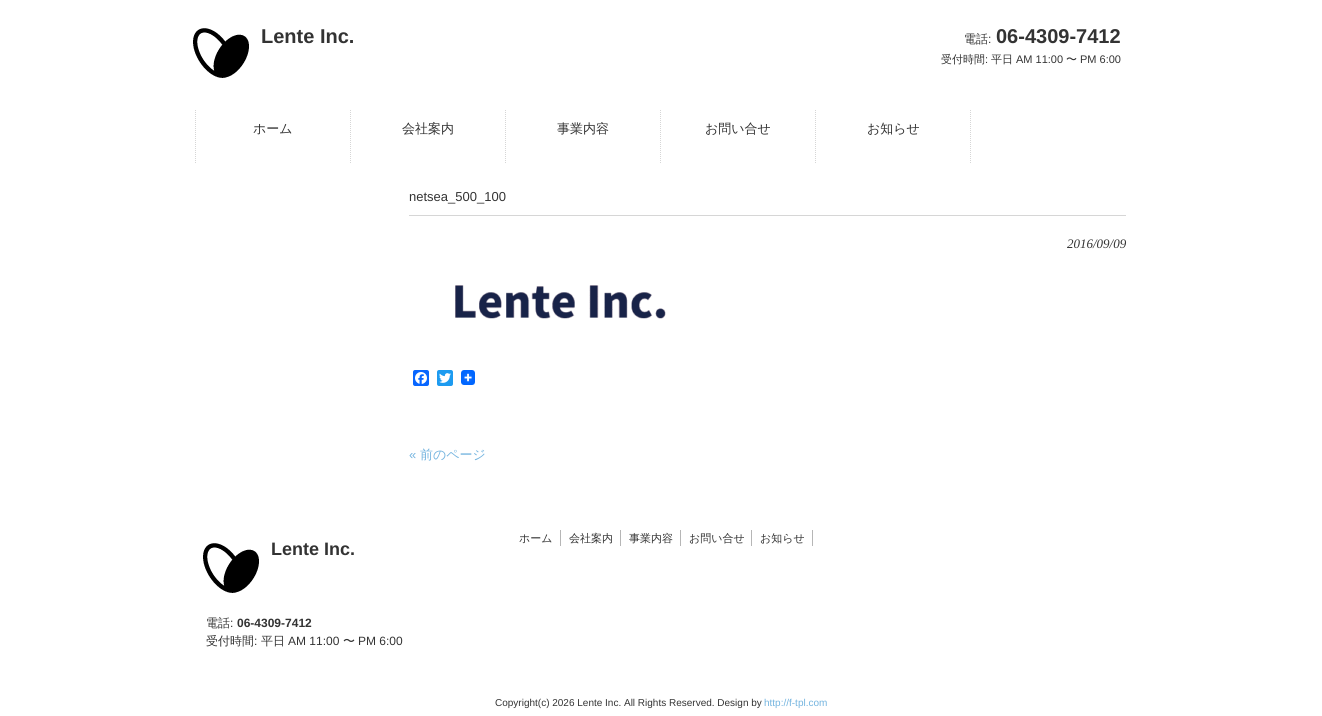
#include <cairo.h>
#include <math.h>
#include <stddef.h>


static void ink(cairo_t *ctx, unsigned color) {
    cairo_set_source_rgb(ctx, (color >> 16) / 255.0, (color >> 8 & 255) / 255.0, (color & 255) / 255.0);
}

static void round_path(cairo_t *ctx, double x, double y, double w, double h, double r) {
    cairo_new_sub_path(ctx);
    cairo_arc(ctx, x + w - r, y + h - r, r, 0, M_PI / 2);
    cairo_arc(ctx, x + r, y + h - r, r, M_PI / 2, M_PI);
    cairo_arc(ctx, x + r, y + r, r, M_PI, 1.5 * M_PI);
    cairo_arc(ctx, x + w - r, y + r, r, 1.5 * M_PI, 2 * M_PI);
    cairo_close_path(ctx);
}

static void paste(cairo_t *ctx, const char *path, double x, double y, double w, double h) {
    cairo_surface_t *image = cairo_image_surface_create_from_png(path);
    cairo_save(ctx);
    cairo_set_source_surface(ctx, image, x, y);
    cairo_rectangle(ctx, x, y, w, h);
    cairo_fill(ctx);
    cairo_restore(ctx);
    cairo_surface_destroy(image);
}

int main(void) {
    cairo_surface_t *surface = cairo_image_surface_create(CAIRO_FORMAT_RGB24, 1322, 716);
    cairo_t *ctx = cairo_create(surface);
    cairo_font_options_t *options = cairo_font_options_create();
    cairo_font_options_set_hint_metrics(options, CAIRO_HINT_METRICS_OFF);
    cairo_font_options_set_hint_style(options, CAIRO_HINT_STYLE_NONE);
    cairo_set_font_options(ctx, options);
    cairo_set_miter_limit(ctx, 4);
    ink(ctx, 0xFFFFFF);
    cairo_paint(ctx);
    paste(ctx, "media/1.png", 193, 28, 56, 50);
    cairo_select_font_face(ctx, "Liberation Sans", CAIRO_FONT_SLANT_NORMAL, CAIRO_FONT_WEIGHT_BOLD);
    cairo_set_font_size(ctx, 20);
    ink(ctx, 0x333333);
    cairo_move_to(ctx, 261, 43);
    cairo_show_text(ctx, "Lente Inc.");
    cairo_select_font_face(ctx, "WenQuanYi Zen Hei Medium", CAIRO_FONT_SLANT_NORMAL, CAIRO_FONT_WEIGHT_NORMAL);
    cairo_set_font_size(ctx, 12);
    cairo_move_to(ctx, 964, 43);
    cairo_show_text(ctx, "電話");
    cairo_select_font_face(ctx, "Liberation Sans", CAIRO_FONT_SLANT_NORMAL, CAIRO_FONT_WEIGHT_NORMAL);
    cairo_move_to(ctx, 988, 43);
    cairo_show_text(ctx, ":");
    cairo_select_font_face(ctx, "Liberation Sans", CAIRO_FONT_SLANT_NORMAL, CAIRO_FONT_WEIGHT_BOLD);
    cairo_set_font_size(ctx, 20);
    cairo_move_to(ctx, 996, 43);
    cairo_show_text(ctx, "06-4309-7412");
    cairo_select_font_face(ctx, "WenQuanYi Zen Hei Medium", CAIRO_FONT_SLANT_NORMAL, CAIRO_FONT_WEIGHT_NORMAL);
    cairo_set_font_size(ctx, 11);
    cairo_move_to(ctx, 941, 63);
    cairo_show_text(ctx, "受付時間");
    cairo_select_font_face(ctx, "Liberation Sans", CAIRO_FONT_SLANT_NORMAL, CAIRO_FONT_WEIGHT_NORMAL);
    cairo_move_to(ctx, 985, 63);
    cairo_show_text(ctx, ":");
    cairo_select_font_face(ctx, "WenQuanYi Zen Hei Medium", CAIRO_FONT_SLANT_NORMAL, CAIRO_FONT_WEIGHT_NORMAL);
    cairo_move_to(ctx, 991, 63);
    cairo_show_text(ctx, "平日");
    cairo_select_font_face(ctx, "Liberation Sans", CAIRO_FONT_SLANT_NORMAL, CAIRO_FONT_WEIGHT_NORMAL);
    cairo_move_to(ctx, 1016, 63);
    cairo_show_text(ctx, "AM 11:00");
    cairo_select_font_face(ctx, "WenQuanYi Zen Hei Medium", CAIRO_FONT_SLANT_NORMAL, CAIRO_FONT_WEIGHT_NORMAL);
    cairo_move_to(ctx, 1066, 63);
    cairo_show_text(ctx, "〜");
    cairo_select_font_face(ctx, "Liberation Sans", CAIRO_FONT_SLANT_NORMAL, CAIRO_FONT_WEIGHT_NORMAL);
    cairo_move_to(ctx, 1080, 63);
    cairo_show_text(ctx, "PM 6:00");
    cairo_new_path(ctx);
    cairo_move_to(ctx, 195.5, 110);
    cairo_line_to(ctx, 195.5, 164);
    ink(ctx, 0xD6D6D6);
    cairo_set_line_width(ctx, 1);
    cairo_set_dash(ctx, (double[]){1, 1}, 2, 0);
    cairo_stroke(ctx);
    cairo_select_font_face(ctx, "WenQuanYi Zen Hei Medium", CAIRO_FONT_SLANT_NORMAL, CAIRO_FONT_WEIGHT_NORMAL);
    cairo_set_font_size(ctx, 13);
    ink(ctx, 0x333333);
    cairo_move_to(ctx, 253, 133);
    cairo_show_text(ctx, "ホーム");
    cairo_new_path(ctx);
    cairo_move_to(ctx, 350.5, 110);
    cairo_line_to(ctx, 350.5, 164);
    ink(ctx, 0xD6D6D6);
    cairo_stroke(ctx);
    ink(ctx, 0x333333);
    cairo_move_to(ctx, 402, 133);
    cairo_show_text(ctx, "会社案内");
    cairo_new_path(ctx);
    cairo_move_to(ctx, 505.5, 110);
    cairo_line_to(ctx, 505.5, 164);
    ink(ctx, 0xD6D6D6);
    cairo_stroke(ctx);
    ink(ctx, 0x333333);
    cairo_move_to(ctx, 557, 133);
    cairo_show_text(ctx, "事業内容");
    cairo_new_path(ctx);
    cairo_move_to(ctx, 660.5, 110);
    cairo_line_to(ctx, 660.5, 164);
    ink(ctx, 0xD6D6D6);
    cairo_stroke(ctx);
    ink(ctx, 0x333333);
    cairo_move_to(ctx, 705, 133);
    cairo_show_text(ctx, "お問い合せ");
    cairo_new_path(ctx);
    cairo_move_to(ctx, 970.5, 110);
    cairo_line_to(ctx, 970.5, 164);
    ink(ctx, 0xD6D6D6);
    cairo_stroke(ctx);
    cairo_new_path(ctx);
    cairo_move_to(ctx, 815.5, 110);
    cairo_line_to(ctx, 815.5, 164);
    cairo_stroke(ctx);
    ink(ctx, 0x333333);
    cairo_move_to(ctx, 867, 133);
    cairo_show_text(ctx, "お知らせ");
    ink(ctx, 0xD6D6D6);
    cairo_rectangle(ctx, 409, 215, 717, 1);
    cairo_fill(ctx);
    cairo_select_font_face(ctx, "Liberation Sans", CAIRO_FONT_SLANT_NORMAL, CAIRO_FONT_WEIGHT_NORMAL);
    ink(ctx, 0x333333);
    cairo_move_to(ctx, 409, 201);
    cairo_show_text(ctx, "netsea_500_100");
    cairo_select_font_face(ctx, "Liberation Serif", CAIRO_FONT_SLANT_ITALIC, CAIRO_FONT_WEIGHT_NORMAL);
    cairo_move_to(ctx, 1067, 248);
    cairo_show_text(ctx, "2016/09/09");
    paste(ctx, "media/2.png", 455, 285, 211, 34);
    ink(ctx, 0x0866FF);
    round_path(ctx, 413, 370, 16, 16, 2);
    cairo_fill(ctx);
    paste(ctx, "media/3.png", 415, 372, 12, 12);
    ink(ctx, 0x1D9BF0);
    round_path(ctx, 437, 370, 16, 16, 2);
    cairo_fill(ctx);
    paste(ctx, "media/4.png", 439, 373, 12, 10);
    paste(ctx, "media/5.png", 461, 370, 14, 15);
    cairo_select_font_face(ctx, "Liberation Sans", CAIRO_FONT_SLANT_NORMAL, CAIRO_FONT_WEIGHT_NORMAL);
    ink(ctx, 0x74B4DF);
    cairo_move_to(ctx, 409, 459);
    cairo_show_text(ctx, "«");
    cairo_select_font_face(ctx, "WenQuanYi Zen Hei Medium", CAIRO_FONT_SLANT_NORMAL, CAIRO_FONT_WEIGHT_NORMAL);
    cairo_move_to(ctx, 420, 459);
    cairo_show_text(ctx, "前のページ");
    ink(ctx, 0xB6B6B6);
    cairo_rectangle(ctx, 560, 530, 1, 16);
    cairo_fill(ctx);
    cairo_set_font_size(ctx, 11);
    ink(ctx, 0x333333);
    cairo_move_to(ctx, 519, 542);
    cairo_show_text(ctx, "ホーム");
    ink(ctx, 0xB6B6B6);
    cairo_rectangle(ctx, 620, 530, 1, 16);
    cairo_fill(ctx);
    ink(ctx, 0x333333);
    cairo_move_to(ctx, 569, 542);
    cairo_show_text(ctx, "会社案内");
    ink(ctx, 0xB6B6B6);
    cairo_rectangle(ctx, 680, 530, 1, 16);
    cairo_fill(ctx);
    ink(ctx, 0x333333);
    cairo_move_to(ctx, 629, 542);
    cairo_show_text(ctx, "事業内容");
    ink(ctx, 0xB6B6B6);
    cairo_rectangle(ctx, 751, 530, 1, 16);
    cairo_fill(ctx);
    ink(ctx, 0x333333);
    cairo_move_to(ctx, 689, 542);
    cairo_show_text(ctx, "お問い合せ");
    ink(ctx, 0xB6B6B6);
    cairo_rectangle(ctx, 812, 530, 1, 16);
    cairo_fill(ctx);
    ink(ctx, 0x333333);
    cairo_move_to(ctx, 760, 542);
    cairo_show_text(ctx, "お知らせ");
    paste(ctx, "media/1.png", 203, 543, 56, 50);
    cairo_select_font_face(ctx, "Liberation Sans", CAIRO_FONT_SLANT_NORMAL, CAIRO_FONT_WEIGHT_BOLD);
    cairo_set_font_size(ctx, 18);
    cairo_move_to(ctx, 271, 555);
    cairo_show_text(ctx, "Lente Inc.");
    cairo_select_font_face(ctx, "WenQuanYi Zen Hei Medium", CAIRO_FONT_SLANT_NORMAL, CAIRO_FONT_WEIGHT_NORMAL);
    cairo_set_font_size(ctx, 12);
    cairo_move_to(ctx, 206, 627);
    cairo_show_text(ctx, "電話");
    cairo_select_font_face(ctx, "Liberation Sans", CAIRO_FONT_SLANT_NORMAL, CAIRO_FONT_WEIGHT_NORMAL);
    cairo_move_to(ctx, 230, 627);
    cairo_show_text(ctx, ":");
    cairo_select_font_face(ctx, "Liberation Sans", CAIRO_FONT_SLANT_NORMAL, CAIRO_FONT_WEIGHT_BOLD);
    cairo_move_to(ctx, 237, 627);
    cairo_show_text(ctx, "06-4309-7412");
    cairo_select_font_face(ctx, "WenQuanYi Zen Hei Medium", CAIRO_FONT_SLANT_NORMAL, CAIRO_FONT_WEIGHT_NORMAL);
    cairo_move_to(ctx, 206, 645);
    cairo_show_text(ctx, "受付時間");
    cairo_select_font_face(ctx, "Liberation Sans", CAIRO_FONT_SLANT_NORMAL, CAIRO_FONT_WEIGHT_NORMAL);
    cairo_move_to(ctx, 254, 645);
    cairo_show_text(ctx, ":");
    cairo_select_font_face(ctx, "WenQuanYi Zen Hei Medium", CAIRO_FONT_SLANT_NORMAL, CAIRO_FONT_WEIGHT_NORMAL);
    cairo_move_to(ctx, 261, 645);
    cairo_show_text(ctx, "平日");
    cairo_select_font_face(ctx, "Liberation Sans", CAIRO_FONT_SLANT_NORMAL, CAIRO_FONT_WEIGHT_NORMAL);
    cairo_move_to(ctx, 288, 645);
    cairo_show_text(ctx, "AM 11:00");
    cairo_select_font_face(ctx, "WenQuanYi Zen Hei Medium", CAIRO_FONT_SLANT_NORMAL, CAIRO_FONT_WEIGHT_NORMAL);
    cairo_move_to(ctx, 343, 645);
    cairo_show_text(ctx, "〜");
    cairo_select_font_face(ctx, "Liberation Sans", CAIRO_FONT_SLANT_NORMAL, CAIRO_FONT_WEIGHT_NORMAL);
    cairo_move_to(ctx, 358, 645);
    cairo_show_text(ctx, "PM 6:00");
    cairo_set_font_size(ctx, 10);
    cairo_move_to(ctx, 495, 706);
    cairo_show_text(ctx, "Copyright(c) 2026 Lente Inc. All Rights Reserved. Design by");
    ink(ctx, 0x74B4DF);
    cairo_move_to(ctx, 764, 706);
    cairo_show_text(ctx, "http://f-tpl.com");
    cairo_surface_write_to_png(surface, "image.png");
    cairo_font_options_destroy(options);
    cairo_destroy(ctx);
    cairo_surface_destroy(surface);
    return 0;
}
